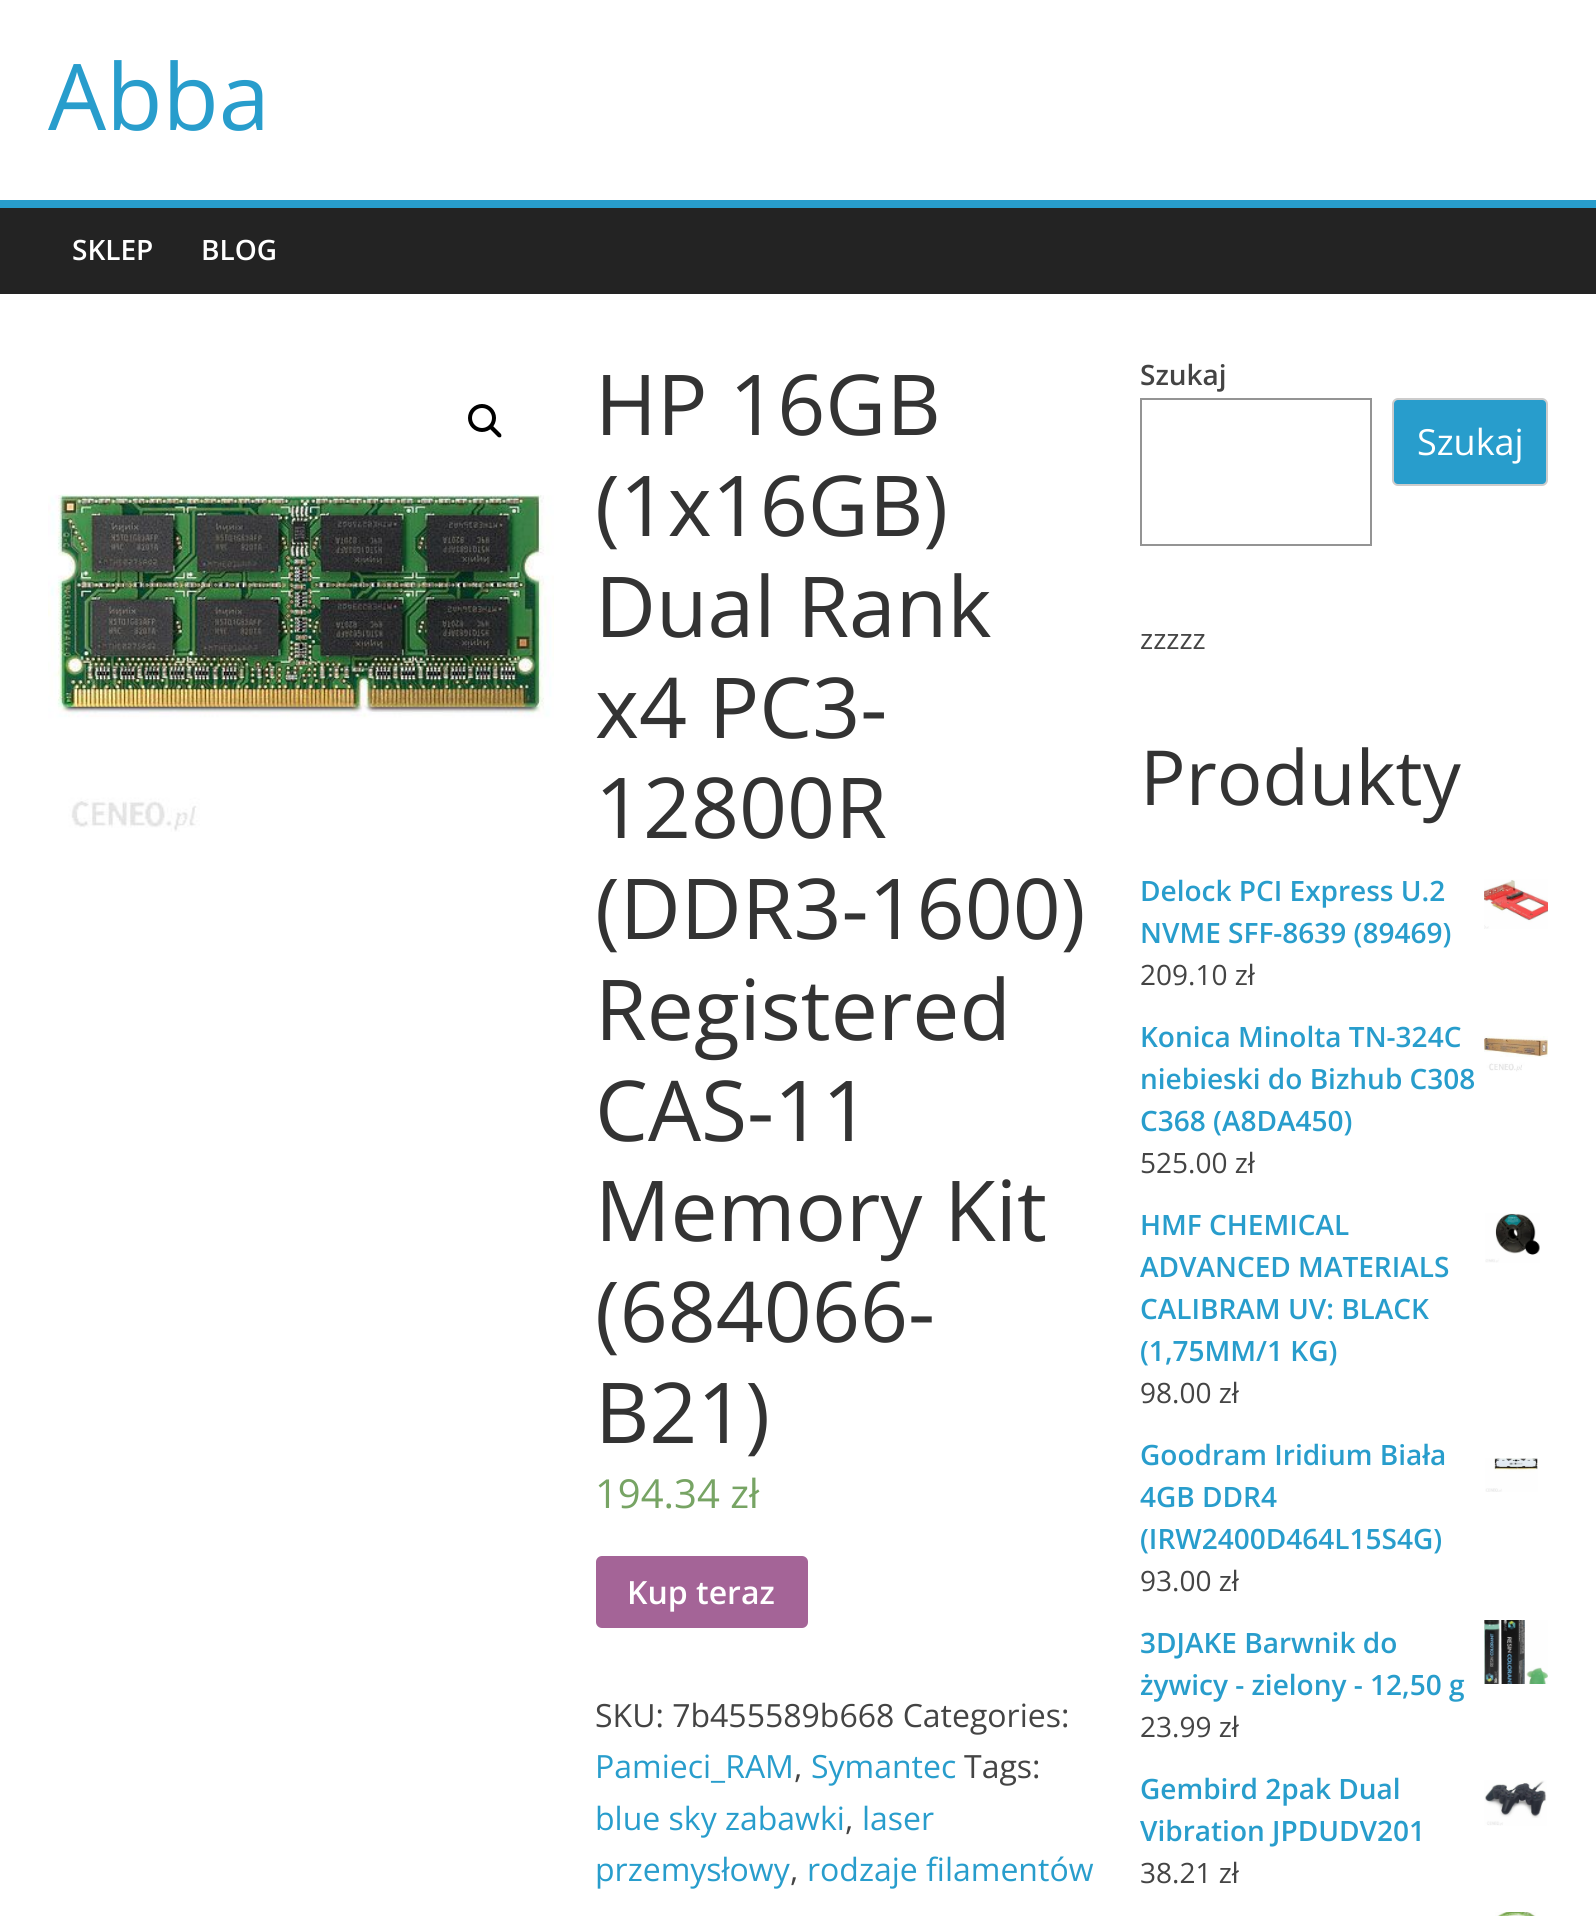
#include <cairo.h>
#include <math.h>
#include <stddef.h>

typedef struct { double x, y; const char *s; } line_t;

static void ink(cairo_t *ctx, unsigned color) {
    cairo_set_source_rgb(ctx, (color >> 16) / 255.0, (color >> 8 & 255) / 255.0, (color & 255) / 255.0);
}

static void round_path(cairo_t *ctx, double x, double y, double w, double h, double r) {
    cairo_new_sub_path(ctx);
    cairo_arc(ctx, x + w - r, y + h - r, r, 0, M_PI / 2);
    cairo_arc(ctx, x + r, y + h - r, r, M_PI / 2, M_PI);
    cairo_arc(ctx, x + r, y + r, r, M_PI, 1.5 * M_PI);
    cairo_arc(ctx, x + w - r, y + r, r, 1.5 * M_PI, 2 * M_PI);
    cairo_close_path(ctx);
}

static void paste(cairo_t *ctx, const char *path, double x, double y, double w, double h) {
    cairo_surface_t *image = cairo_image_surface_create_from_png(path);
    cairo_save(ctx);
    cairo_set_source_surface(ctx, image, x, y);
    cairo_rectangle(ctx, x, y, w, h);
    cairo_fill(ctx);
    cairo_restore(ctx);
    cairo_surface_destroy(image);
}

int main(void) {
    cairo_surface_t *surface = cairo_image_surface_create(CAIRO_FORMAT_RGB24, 1596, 1916);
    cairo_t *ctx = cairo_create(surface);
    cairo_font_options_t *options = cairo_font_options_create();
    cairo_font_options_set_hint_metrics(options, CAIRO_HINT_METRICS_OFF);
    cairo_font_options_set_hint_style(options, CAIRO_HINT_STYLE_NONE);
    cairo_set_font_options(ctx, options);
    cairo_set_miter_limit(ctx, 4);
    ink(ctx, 0xFFFFFF);
    cairo_paint(ctx);
    cairo_select_font_face(ctx, "Open Sans", CAIRO_FONT_SLANT_NORMAL, CAIRO_FONT_WEIGHT_NORMAL);
    cairo_set_font_size(ctx, 92);
    ink(ctx, 0x289DCC);
    cairo_move_to(ctx, 48, 130);
    cairo_show_text(ctx, "Abba");
    ink(ctx, 0x232323);
    cairo_rectangle(ctx, 0, 208, 1596, 86);
    cairo_fill(ctx);
    ink(ctx, 0x289DCC);
    cairo_rectangle(ctx, 0, 200, 1596, 8);
    cairo_fill(ctx);
    cairo_select_font_face(ctx, "Open Sans SemiBold", CAIRO_FONT_SLANT_NORMAL, CAIRO_FONT_WEIGHT_NORMAL);
    cairo_set_font_size(ctx, 28);
    ink(ctx, 0xFFFFFF);
    cairo_move_to(ctx, 72, 260);
    cairo_show_text(ctx, "SKLEP");
    cairo_move_to(ctx, 201, 260);
    cairo_show_text(ctx, "BLOG");
    cairo_new_path(ctx);
    cairo_arc(ctx, 482, 418, 12, 0, 2 * M_PI);
    ink(ctx, 0x000000);
    cairo_set_line_width(ctx, 4);
    cairo_stroke(ctx);
    cairo_new_path(ctx);
    cairo_move_to(ctx, 489.5, 425.5);
    cairo_curve_to(ctx, 490.5, 424.5, 491.5, 424.5, 492.5, 425.5);
    cairo_line_to(ctx, 501, 434);
    cairo_curve_to(ctx, 501.5, 435, 501.5, 436, 501, 437);
    cairo_curve_to(ctx, 500, 437.5, 499, 437.5, 498, 437);
    cairo_line_to(ctx, 489.5, 428.5);
    cairo_curve_to(ctx, 488.5, 427.5, 488.5, 426.5, 489.5, 425.5);
    cairo_close_path(ctx);
    cairo_fill(ctx);
    paste(ctx, "media/1.png", 48, 494, 506, 338);
    cairo_select_font_face(ctx, "Open Sans", CAIRO_FONT_SLANT_NORMAL, CAIRO_FONT_WEIGHT_NORMAL);
    cairo_set_font_size(ctx, 84);
    ink(ctx, 0x333333);
    {
        static const line_t items[] = {
            {595, 435, "HP 16GB"},
            {595, 536, "(1x16GB)"},
            {595, 637, "Dual Rank"},
            {595, 738, "x4 PC3-"},
            {595, 838, "12800R"},
            {595, 939, "(DDR3-1600)"},
            {595, 1040, "Registered"},
            {595, 1141, "CAS-11"},
            {595, 1241, "Memory Kit"},
            {595, 1342, "(684066-"},
            {595, 1443, "B21)"},
        };
        for (size_t i = 0; i < sizeof items / sizeof *items; i++) {
            cairo_move_to(ctx, items[i].x, items[i].y);
            cairo_show_text(ctx, items[i].s);
        }
    }
    cairo_set_font_size(ctx, 40);
    ink(ctx, 0x77A464);
    cairo_move_to(ctx, 595, 1508);
    cairo_show_text(ctx, "194.34 zł");
    ink(ctx, 0xA46497);
    round_path(ctx, 596, 1556, 212, 72, 6);
    cairo_fill(ctx);
    cairo_select_font_face(ctx, "Open Sans SemiBold", CAIRO_FONT_SLANT_NORMAL, CAIRO_FONT_WEIGHT_NORMAL);
    cairo_set_font_size(ctx, 32);
    ink(ctx, 0xFFFFFF);
    cairo_move_to(ctx, 627, 1604);
    cairo_show_text(ctx, "Kup teraz");
    cairo_select_font_face(ctx, "Open Sans", CAIRO_FONT_SLANT_NORMAL, CAIRO_FONT_WEIGHT_NORMAL);
    ink(ctx, 0x444444);
    cairo_move_to(ctx, 595, 1727);
    cairo_show_text(ctx, "SKU: 7b455589b668 Categories:");
    ink(ctx, 0x289DCC);
    cairo_move_to(ctx, 595, 1778);
    cairo_show_text(ctx, "Pamieci_RAM");
    ink(ctx, 0x444444);
    cairo_move_to(ctx, 794, 1778);
    cairo_show_text(ctx, ",");
    ink(ctx, 0x289DCC);
    cairo_move_to(ctx, 811, 1778);
    cairo_show_text(ctx, "Symantec");
    ink(ctx, 0x444444);
    cairo_move_to(ctx, 964, 1778);
    cairo_show_text(ctx, "Tags:");
    ink(ctx, 0x289DCC);
    cairo_move_to(ctx, 595, 1830);
    cairo_show_text(ctx, "blue sky zabawki");
    ink(ctx, 0x444444);
    cairo_move_to(ctx, 845, 1830);
    cairo_show_text(ctx, ",");
    ink(ctx, 0x289DCC);
    cairo_move_to(ctx, 862, 1830);
    cairo_show_text(ctx, "laser");
    cairo_move_to(ctx, 595, 1881);
    cairo_show_text(ctx, "przemysłowy");
    ink(ctx, 0x444444);
    cairo_move_to(ctx, 790, 1881);
    cairo_show_text(ctx, ",");
    ink(ctx, 0x289DCC);
    cairo_move_to(ctx, 807, 1881);
    cairo_show_text(ctx, "rodzaje filamentów");
    cairo_select_font_face(ctx, "Open Sans SemiBold", CAIRO_FONT_SLANT_NORMAL, CAIRO_FONT_WEIGHT_NORMAL);
    cairo_set_font_size(ctx, 28);
    ink(ctx, 0x444444);
    cairo_move_to(ctx, 1140, 385);
    cairo_show_text(ctx, "Szukaj");
    cairo_rectangle(ctx, 1141, 399, 230, 146);
    ink(ctx, 0x949494);
    cairo_set_line_width(ctx, 2);
    cairo_stroke(ctx);
    ink(ctx, 0x289DCC);
    round_path(ctx, 1393, 399, 154, 86, 5);
    cairo_fill_preserve(ctx);
    ink(ctx, 0xCCCCCC);
    cairo_stroke(ctx);
    cairo_select_font_face(ctx, "Open Sans", CAIRO_FONT_SLANT_NORMAL, CAIRO_FONT_WEIGHT_NORMAL);
    cairo_set_font_size(ctx, 36);
    ink(ctx, 0xFFFFFF);
    cairo_move_to(ctx, 1417, 455);
    cairo_show_text(ctx, "Szukaj");
    cairo_set_font_size(ctx, 28);
    ink(ctx, 0x444444);
    cairo_move_to(ctx, 1140, 649);
    cairo_show_text(ctx, "zzzzz");
    cairo_set_font_size(ctx, 76);
    ink(ctx, 0x333333);
    cairo_move_to(ctx, 1140, 805);
    cairo_show_text(ctx, "Produkty");
    cairo_select_font_face(ctx, "Open Sans SemiBold", CAIRO_FONT_SLANT_NORMAL, CAIRO_FONT_WEIGHT_NORMAL);
    cairo_set_font_size(ctx, 28);
    ink(ctx, 0x289DCC);
    cairo_move_to(ctx, 1140, 901);
    cairo_show_text(ctx, "Delock PCI Express U.2");
    paste(ctx, "media/2.png", 1484, 879, 64, 50);
    cairo_move_to(ctx, 1140, 943);
    cairo_show_text(ctx, "NVME SFF-8639 (89469)");
    cairo_select_font_face(ctx, "Open Sans", CAIRO_FONT_SLANT_NORMAL, CAIRO_FONT_WEIGHT_NORMAL);
    ink(ctx, 0x444444);
    cairo_move_to(ctx, 1140, 985);
    cairo_show_text(ctx, "209.10 zł");
    cairo_select_font_face(ctx, "Open Sans SemiBold", CAIRO_FONT_SLANT_NORMAL, CAIRO_FONT_WEIGHT_NORMAL);
    ink(ctx, 0x289DCC);
    cairo_move_to(ctx, 1140, 1047);
    cairo_show_text(ctx, "Konica Minolta TN-324C");
    paste(ctx, "media/3.png", 1484, 1036, 64, 36);
    cairo_move_to(ctx, 1140, 1089);
    cairo_show_text(ctx, "niebieski do Bizhub C308");
    cairo_move_to(ctx, 1140, 1131);
    cairo_show_text(ctx, "C368 (A8DA450)");
    cairo_select_font_face(ctx, "Open Sans", CAIRO_FONT_SLANT_NORMAL, CAIRO_FONT_WEIGHT_NORMAL);
    ink(ctx, 0x444444);
    cairo_move_to(ctx, 1140, 1173);
    cairo_show_text(ctx, "525.00 zł");
    cairo_select_font_face(ctx, "Open Sans SemiBold", CAIRO_FONT_SLANT_NORMAL, CAIRO_FONT_WEIGHT_NORMAL);
    ink(ctx, 0x289DCC);
    cairo_move_to(ctx, 1140, 1235);
    cairo_show_text(ctx, "HMF CHEMICAL");
    paste(ctx, "media/4.png", 1485, 1213, 55, 50);
    {
        static const line_t items[] = {
            {1140, 1277, "ADVANCED MATERIALS"},
            {1140, 1319, "CALIBRAM UV: BLACK"},
            {1140, 1361, "(1,75MM/1 KG)"},
        };
        for (size_t i = 0; i < sizeof items / sizeof *items; i++) {
            cairo_move_to(ctx, items[i].x, items[i].y);
            cairo_show_text(ctx, items[i].s);
        }
    }
    cairo_select_font_face(ctx, "Open Sans", CAIRO_FONT_SLANT_NORMAL, CAIRO_FONT_WEIGHT_NORMAL);
    ink(ctx, 0x444444);
    cairo_move_to(ctx, 1140, 1403);
    cairo_show_text(ctx, "98.00 zł");
    cairo_select_font_face(ctx, "Open Sans SemiBold", CAIRO_FONT_SLANT_NORMAL, CAIRO_FONT_WEIGHT_NORMAL);
    ink(ctx, 0x289DCC);
    cairo_move_to(ctx, 1140, 1465);
    cairo_show_text(ctx, "Goodram Iridium Biała");
    paste(ctx, "media/5.png", 1485, 1458, 53, 34);
    cairo_move_to(ctx, 1140, 1507);
    cairo_show_text(ctx, "4GB DDR4");
    cairo_move_to(ctx, 1140, 1549);
    cairo_show_text(ctx, "(IRW2400D464L15S4G)");
    cairo_select_font_face(ctx, "Open Sans", CAIRO_FONT_SLANT_NORMAL, CAIRO_FONT_WEIGHT_NORMAL);
    ink(ctx, 0x444444);
    cairo_move_to(ctx, 1140, 1591);
    cairo_show_text(ctx, "93.00 zł");
    cairo_select_font_face(ctx, "Open Sans SemiBold", CAIRO_FONT_SLANT_NORMAL, CAIRO_FONT_WEIGHT_NORMAL);
    ink(ctx, 0x289DCC);
    cairo_move_to(ctx, 1140, 1653);
    cairo_show_text(ctx, "3DJAKE Barwnik do");
    paste(ctx, "media/6.png", 1484, 1620, 64, 64);
    cairo_move_to(ctx, 1140, 1695);
    cairo_show_text(ctx, "żywicy - zielony - 12,50 g");
    cairo_select_font_face(ctx, "Open Sans", CAIRO_FONT_SLANT_NORMAL, CAIRO_FONT_WEIGHT_NORMAL);
    ink(ctx, 0x444444);
    cairo_move_to(ctx, 1140, 1737);
    cairo_show_text(ctx, "23.99 zł");
    cairo_select_font_face(ctx, "Open Sans SemiBold", CAIRO_FONT_SLANT_NORMAL, CAIRO_FONT_WEIGHT_NORMAL);
    ink(ctx, 0x289DCC);
    cairo_move_to(ctx, 1140, 1799);
    cairo_show_text(ctx, "Gembird 2pak Dual");
    paste(ctx, "media/7.png", 1484, 1780, 63, 46);
    cairo_move_to(ctx, 1140, 1841);
    cairo_show_text(ctx, "Vibration JPDUDV201");
    cairo_select_font_face(ctx, "Open Sans", CAIRO_FONT_SLANT_NORMAL, CAIRO_FONT_WEIGHT_NORMAL);
    ink(ctx, 0x444444);
    cairo_move_to(ctx, 1140, 1883);
    cairo_show_text(ctx, "38.21 zł");
    paste(ctx, "media/8.png", 1495, 1912, 41, 4);
    cairo_surface_write_to_png(surface, "image.png");
    cairo_font_options_destroy(options);
    cairo_destroy(ctx);
    cairo_surface_destroy(surface);
    return 0;
}
